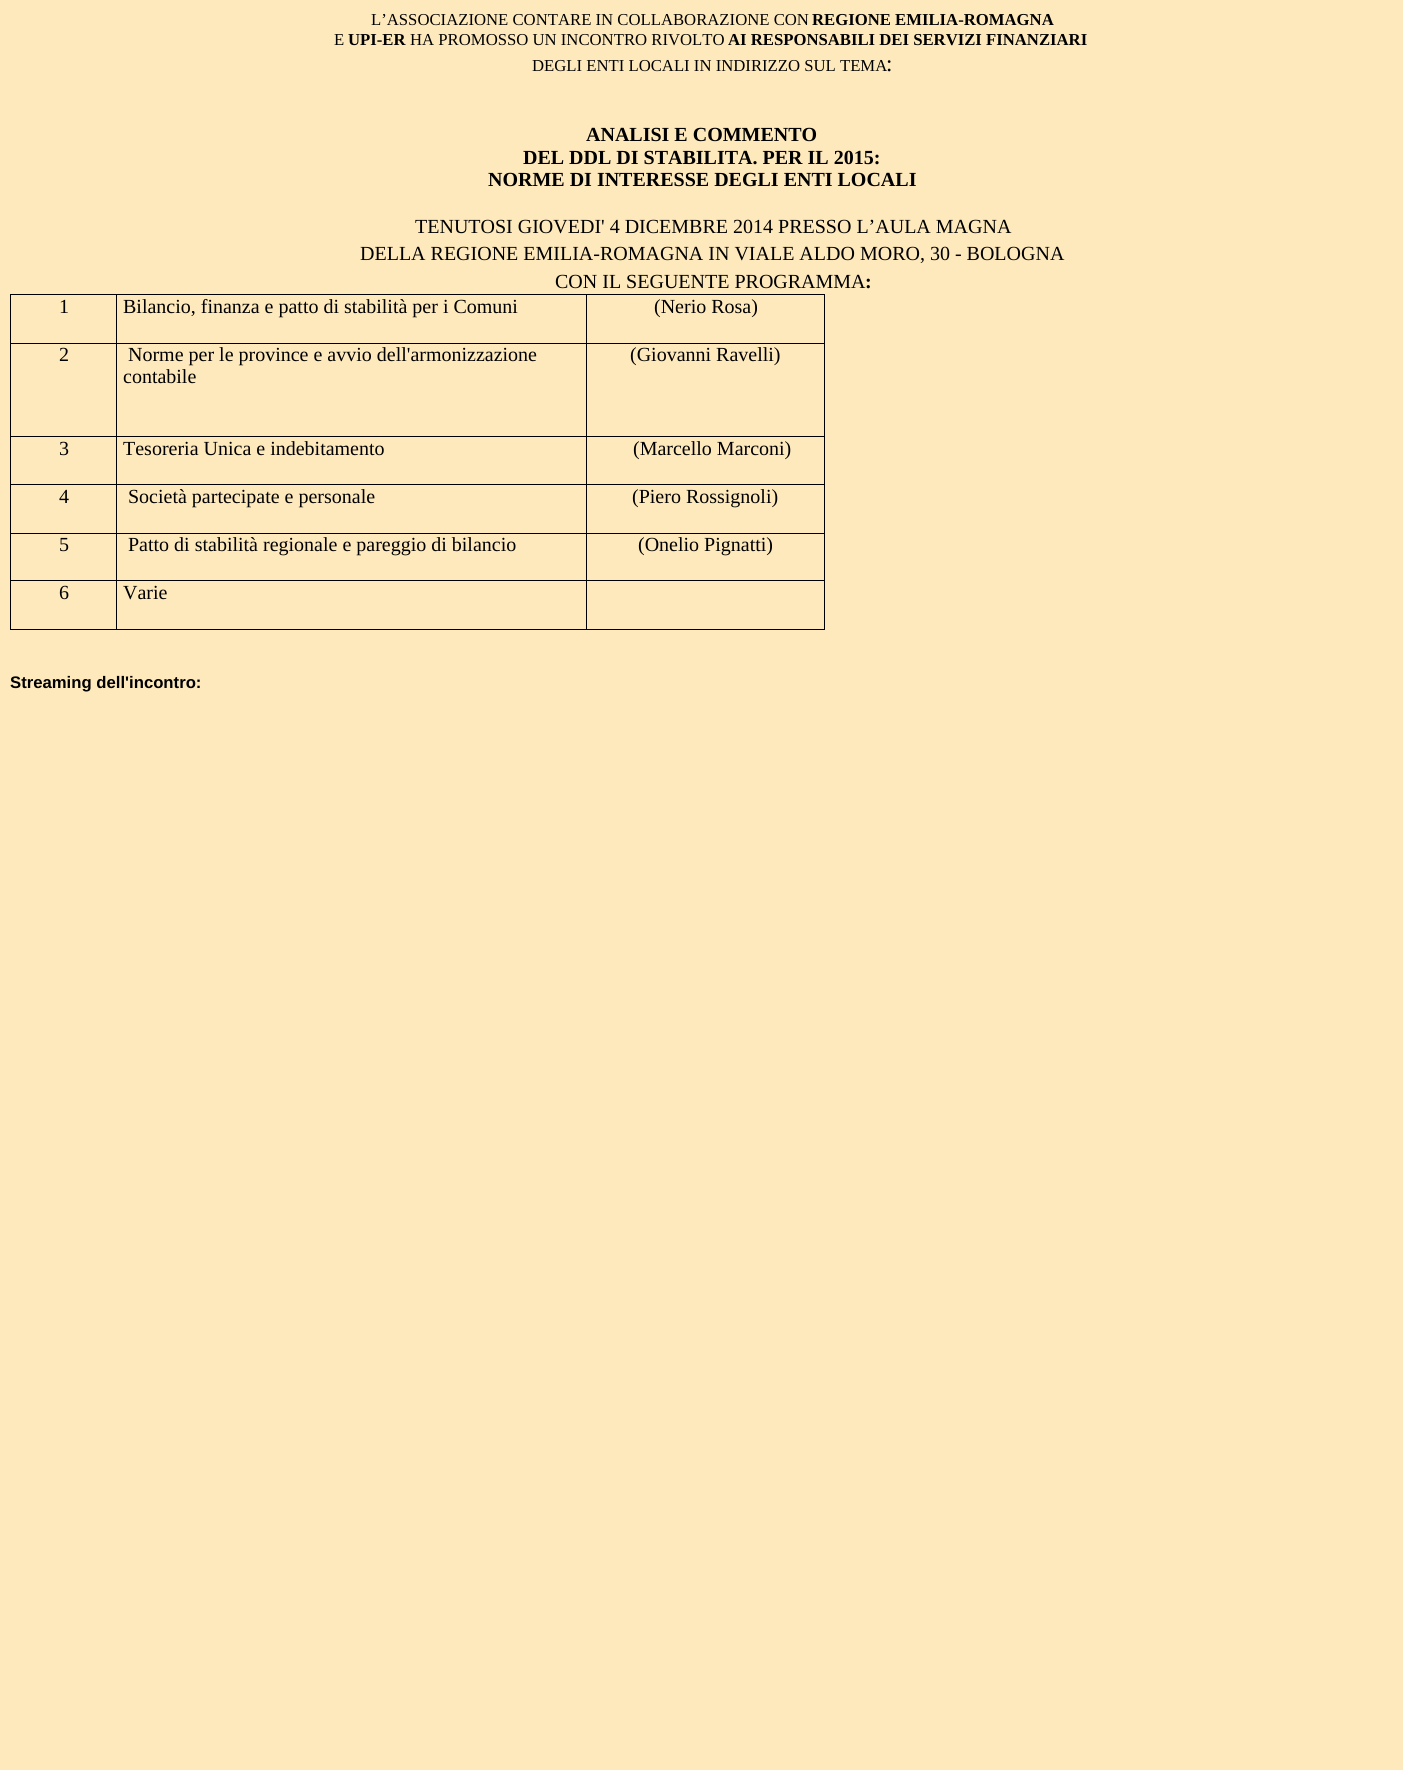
#include <cairo.h>
#include <math.h>
#include <stddef.h>

typedef struct { double x, y; const char *s; } line_t;
typedef struct { double x, y, w, h; unsigned color; } box_t;

static void ink(cairo_t *ctx, unsigned color) {
    cairo_set_source_rgb(ctx, (color >> 16) / 255.0, (color >> 8 & 255) / 255.0, (color & 255) / 255.0);
}

int main(void) {
    cairo_surface_t *surface = cairo_image_surface_create(CAIRO_FORMAT_RGB24, 1403, 1770);
    cairo_t *ctx = cairo_create(surface);
    cairo_font_options_t *options = cairo_font_options_create();
    cairo_font_options_set_hint_metrics(options, CAIRO_HINT_METRICS_OFF);
    cairo_font_options_set_hint_style(options, CAIRO_HINT_STYLE_NONE);
    cairo_set_font_options(ctx, options);
    cairo_set_miter_limit(ctx, 4);
    ink(ctx, 0xFEE9BC);
    cairo_paint(ctx);
    cairo_select_font_face(ctx, "Liberation Serif", CAIRO_FONT_SLANT_NORMAL, CAIRO_FONT_WEIGHT_NORMAL);
    cairo_set_font_size(ctx, 16.7);
    ink(ctx, 0x000000);
    cairo_move_to(ctx, 371, 25);
    cairo_show_text(ctx, "L’ASSOCIAZIONE CONTARE IN COLLABORAZIONE CON");
    cairo_select_font_face(ctx, "Liberation Serif", CAIRO_FONT_SLANT_NORMAL, CAIRO_FONT_WEIGHT_BOLD);
    cairo_move_to(ctx, 812, 25);
    cairo_show_text(ctx, "REGIONE EMILIA-ROMAGNA");
    cairo_select_font_face(ctx, "Liberation Serif", CAIRO_FONT_SLANT_NORMAL, CAIRO_FONT_WEIGHT_NORMAL);
    cairo_move_to(ctx, 334, 45);
    cairo_show_text(ctx, "E");
    cairo_select_font_face(ctx, "Liberation Serif", CAIRO_FONT_SLANT_NORMAL, CAIRO_FONT_WEIGHT_BOLD);
    cairo_move_to(ctx, 348, 45);
    cairo_show_text(ctx, "UPI-ER");
    cairo_select_font_face(ctx, "Liberation Serif", CAIRO_FONT_SLANT_NORMAL, CAIRO_FONT_WEIGHT_NORMAL);
    cairo_move_to(ctx, 410, 45);
    cairo_show_text(ctx, "HA PROMOSSO UN INCONTRO RIVOLTO");
    cairo_select_font_face(ctx, "Liberation Serif", CAIRO_FONT_SLANT_NORMAL, CAIRO_FONT_WEIGHT_BOLD);
    cairo_move_to(ctx, 728, 45);
    cairo_show_text(ctx, "AI RESPONSABILI DEI SERVIZI FINANZIARI");
    cairo_select_font_face(ctx, "Liberation Serif", CAIRO_FONT_SLANT_NORMAL, CAIRO_FONT_WEIGHT_NORMAL);
    cairo_move_to(ctx, 532, 71);
    cairo_show_text(ctx, "DEGLI ENTI LOCALI IN INDIRIZZO SUL TEMA");
    cairo_set_font_size(ctx, 23);
    cairo_move_to(ctx, 886, 71);
    cairo_show_text(ctx, ":");
    cairo_select_font_face(ctx, "Liberation Serif", CAIRO_FONT_SLANT_NORMAL, CAIRO_FONT_WEIGHT_BOLD);
    cairo_set_font_size(ctx, 20);
    {
        static const line_t items[] = {
            {586, 141, "ANALISI E COMMENTO"},
            {523, 164, "DEL DDL DI STABILITA. PER IL 2015:"},
            {488, 186, "NORME DI INTERESSE DEGLI ENTI LOCALI"},
        };
        for (size_t i = 0; i < sizeof items / sizeof *items; i++) {
            cairo_move_to(ctx, items[i].x, items[i].y);
            cairo_show_text(ctx, items[i].s);
        }
    }
    cairo_select_font_face(ctx, "Liberation Serif", CAIRO_FONT_SLANT_NORMAL, CAIRO_FONT_WEIGHT_NORMAL);
    {
        static const line_t items[] = {
            {415, 233, "TENUTOSI GIOVEDI' 4 DICEMBRE 2014 PRESSO L’AULA MAGNA"},
            {360, 260, "DELLA REGIONE EMILIA-ROMAGNA IN VIALE ALDO MORO, 30 - BOLOGNA"},
            {555, 288, "CON IL SEGUENTE PROGRAMMA"},
        };
        for (size_t i = 0; i < sizeof items / sizeof *items; i++) {
            cairo_move_to(ctx, items[i].x, items[i].y);
            cairo_show_text(ctx, items[i].s);
        }
    }
    cairo_select_font_face(ctx, "Liberation Serif", CAIRO_FONT_SLANT_NORMAL, CAIRO_FONT_WEIGHT_BOLD);
    cairo_move_to(ctx, 865, 288);
    cairo_show_text(ctx, ":");
    {
        static const box_t items[] = {
            {10, 294, 815, 1, 0x000000},
            {824, 343, 1, 287, 0x000000},
            {824, 294, 1, 50, 0x000000},
            {586, 629, 239, 1, 0x000000},
            {586, 580, 1, 50, 0x000000},
            {586, 580, 239, 1, 0x000000},
            {586, 533, 1, 48, 0x000000},
            {586, 533, 239, 1, 0x000000},
            {586, 484, 1, 50, 0x000000},
            {586, 484, 239, 1, 0x000000},
            {586, 436, 1, 49, 0x000000},
            {586, 436, 239, 1, 0x000000},
            {586, 343, 1, 95, 0x000000},
            {586, 343, 239, 1, 0x000000},
            {586, 294, 1, 50, 0x000000},
            {116, 629, 472, 1, 0x000000},
            {116, 580, 1, 50, 0x000000},
            {116, 580, 472, 1, 0x000000},
            {116, 533, 1, 48, 0x000000},
            {116, 533, 472, 1, 0x000000},
            {116, 484, 1, 50, 0x000000},
            {116, 484, 472, 1, 0x000000},
            {116, 436, 1, 49, 0x000000},
            {116, 436, 472, 1, 0x000000},
            {116, 343, 1, 95, 0x000000},
            {116, 343, 472, 1, 0x000000},
            {116, 294, 1, 50, 0x000000},
            {10, 629, 108, 1, 0x000000},
            {10, 580, 1, 50, 0x000000},
            {10, 580, 108, 1, 0x000000},
            {10, 533, 1, 48, 0x000000},
            {10, 533, 108, 1, 0x000000},
            {10, 484, 1, 50, 0x000000},
            {10, 484, 108, 1, 0x000000},
            {10, 436, 1, 49, 0x000000},
            {10, 436, 108, 1, 0x000000},
            {10, 343, 1, 95, 0x000000},
            {10, 343, 108, 1, 0x000000},
            {10, 294, 1, 50, 0x000000},
        };
        for (size_t i = 0; i < sizeof items / sizeof *items; i++) {
            ink(ctx, items[i].color);
            cairo_rectangle(ctx, items[i].x, items[i].y, items[i].w, items[i].h);
            cairo_fill(ctx);
        }
    }
    cairo_select_font_face(ctx, "Liberation Serif", CAIRO_FONT_SLANT_NORMAL, CAIRO_FONT_WEIGHT_NORMAL);
    {
        static const line_t items[] = {
            {59, 313, "1"},
            {123, 313, "Bilancio, finanza e patto di stabilità per i Comuni"},
            {654, 313, "(Nerio Rosa)"},
            {59, 361, "2"},
            {128, 361, "Norme per le province e avvio dell'armonizzazione"},
            {123, 383, "contabile"},
            {630, 361, "(Giovanni Ravelli)"},
            {59, 455, "3"},
            {123, 455, "Tesoreria Unica e indebitamento"},
            {633, 455, "(Marcello Marconi)"},
            {59, 503, "4"},
            {128, 503, "Società partecipate e personale"},
            {632, 503, "(Piero Rossignoli)"},
            {59, 551, "5"},
            {128, 551, "Patto di stabilità regionale e pareggio di bilancio"},
            {638, 551, "(Onelio Pignatti)"},
            {59, 599, "6"},
            {123, 599, "Varie"},
        };
        for (size_t i = 0; i < sizeof items / sizeof *items; i++) {
            cairo_move_to(ctx, items[i].x, items[i].y);
            cairo_show_text(ctx, items[i].s);
        }
    }
    cairo_select_font_face(ctx, "Liberation Sans", CAIRO_FONT_SLANT_NORMAL, CAIRO_FONT_WEIGHT_BOLD);
    cairo_set_font_size(ctx, 16.7);
    cairo_move_to(ctx, 10, 688);
    cairo_show_text(ctx, "Streaming dell'incontro:");
    cairo_surface_write_to_png(surface, "image.png");
    cairo_font_options_destroy(options);
    cairo_destroy(ctx);
    cairo_surface_destroy(surface);
    return 0;
}
